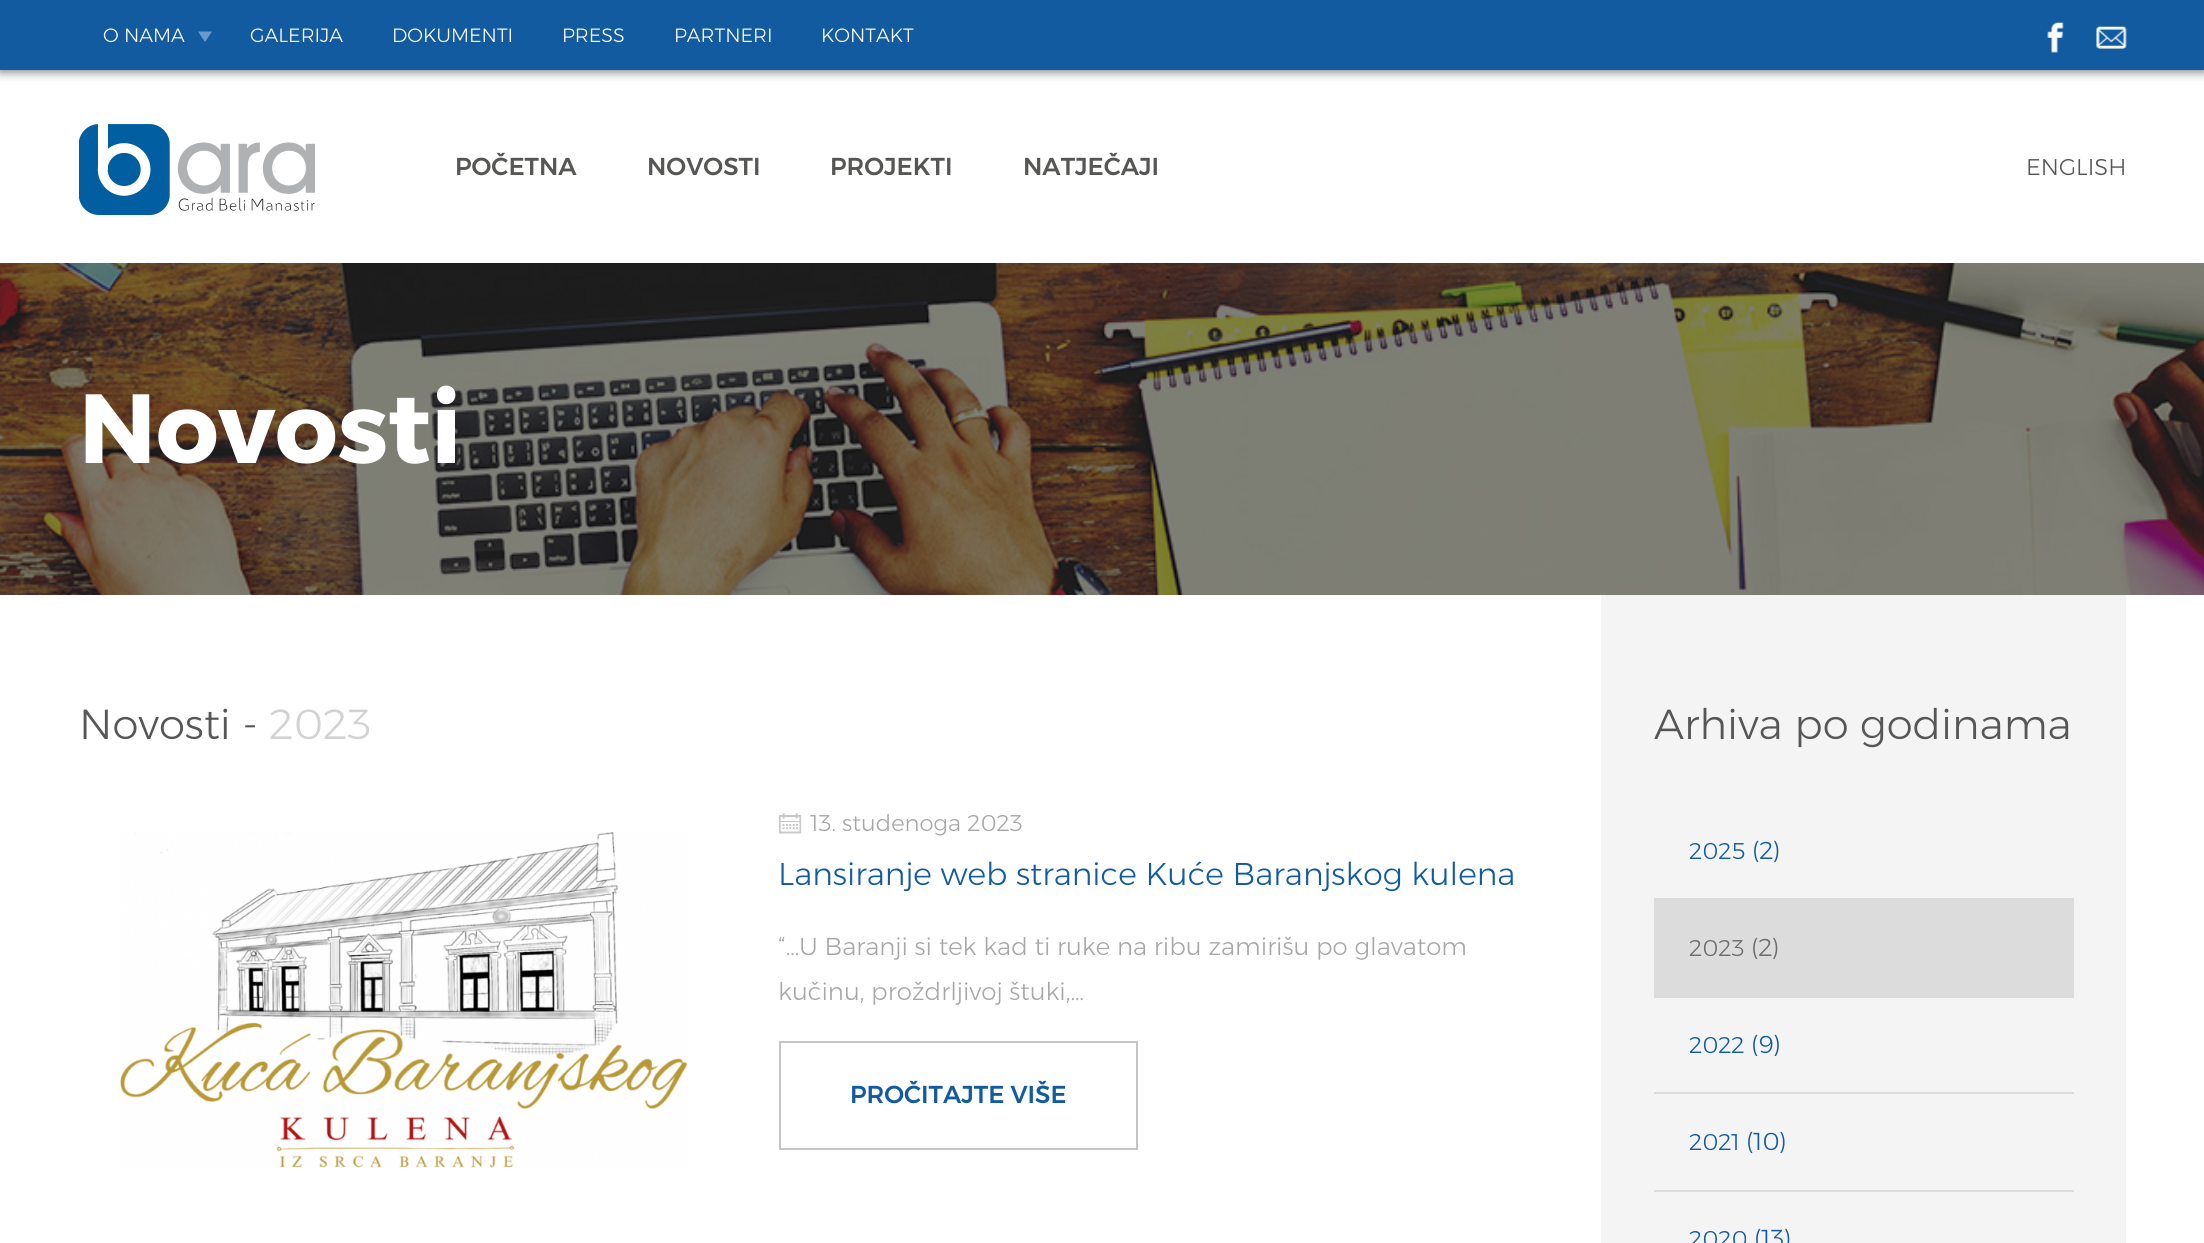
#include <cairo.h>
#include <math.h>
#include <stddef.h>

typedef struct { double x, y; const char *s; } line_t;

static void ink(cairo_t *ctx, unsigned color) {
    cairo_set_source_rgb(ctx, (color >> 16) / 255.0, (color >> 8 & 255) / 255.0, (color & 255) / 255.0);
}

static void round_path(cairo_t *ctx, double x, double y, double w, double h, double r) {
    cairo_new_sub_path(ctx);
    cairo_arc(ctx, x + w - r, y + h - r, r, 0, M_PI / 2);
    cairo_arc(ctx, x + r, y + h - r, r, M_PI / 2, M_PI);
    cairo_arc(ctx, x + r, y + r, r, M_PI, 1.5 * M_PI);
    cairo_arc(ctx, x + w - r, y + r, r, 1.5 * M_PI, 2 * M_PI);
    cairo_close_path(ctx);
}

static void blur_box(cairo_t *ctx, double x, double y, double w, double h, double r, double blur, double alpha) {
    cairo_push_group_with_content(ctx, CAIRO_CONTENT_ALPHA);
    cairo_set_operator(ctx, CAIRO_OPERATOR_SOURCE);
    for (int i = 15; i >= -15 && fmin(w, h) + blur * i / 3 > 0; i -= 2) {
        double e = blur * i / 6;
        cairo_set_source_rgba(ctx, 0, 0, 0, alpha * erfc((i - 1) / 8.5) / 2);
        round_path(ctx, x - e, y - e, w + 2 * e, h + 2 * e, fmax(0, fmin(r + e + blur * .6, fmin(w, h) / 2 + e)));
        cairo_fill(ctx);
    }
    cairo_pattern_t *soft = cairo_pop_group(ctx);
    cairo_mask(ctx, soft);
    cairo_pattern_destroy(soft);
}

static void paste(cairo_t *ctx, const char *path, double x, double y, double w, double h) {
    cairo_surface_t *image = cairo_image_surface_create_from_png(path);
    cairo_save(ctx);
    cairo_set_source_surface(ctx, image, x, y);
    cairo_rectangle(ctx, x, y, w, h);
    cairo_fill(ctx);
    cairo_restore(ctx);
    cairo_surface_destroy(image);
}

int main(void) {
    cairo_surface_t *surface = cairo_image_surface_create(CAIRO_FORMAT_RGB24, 2204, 1243);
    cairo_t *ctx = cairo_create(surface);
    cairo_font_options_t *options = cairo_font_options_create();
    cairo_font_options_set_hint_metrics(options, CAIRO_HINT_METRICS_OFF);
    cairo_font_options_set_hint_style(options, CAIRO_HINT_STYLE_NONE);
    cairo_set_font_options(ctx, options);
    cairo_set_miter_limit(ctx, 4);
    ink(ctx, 0xFFFFFF);
    cairo_paint(ctx);
    ink(ctx, 0x000000);
    blur_box(ctx, 0, 2, 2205, 70, 0, 5, 0.5);
    ink(ctx, 0x135BA1);
    cairo_rectangle(ctx, 0, 0, 2204, 70);
    cairo_fill(ctx);
    cairo_select_font_face(ctx, "Montserrat Light", CAIRO_FONT_SLANT_NORMAL, CAIRO_FONT_WEIGHT_NORMAL);
    cairo_set_font_size(ctx, 19.25);
    ink(ctx, 0xFFFFFF);
    cairo_move_to(ctx, 103, 42);
    cairo_show_text(ctx, "O NAMA");
    ink(ctx, 0x679BCD);
    cairo_new_path(ctx);
    cairo_move_to(ctx, 198, 31.5);
    cairo_line_to(ctx, 212, 31.5);
    cairo_line_to(ctx, 205, 42);
    cairo_close_path(ctx);
    cairo_fill(ctx);
    ink(ctx, 0xFFFFFF);
    {
        static const line_t items[] = {
            {250, 42, "GALERIJA"},
            {392, 42, "DOKUMENTI"},
            {562, 42, "PRESS"},
            {674, 42, "PARTNERI"},
            {821, 42, "KONTAKT"},
        };
        for (size_t i = 0; i < sizeof items / sizeof *items; i++) {
            cairo_move_to(ctx, items[i].x, items[i].y);
            cairo_show_text(ctx, items[i].s);
        }
    }
    paste(ctx, "media/1.png", 2047, 22, 17, 31);
    paste(ctx, "media/2.png", 2096, 26, 31, 23);
    paste(ctx, "media/3.png", 79, 124, 236, 91);
    cairo_select_font_face(ctx, "Montserrat Medium", CAIRO_FONT_SLANT_NORMAL, CAIRO_FONT_WEIGHT_NORMAL);
    cairo_set_font_size(ctx, 24.5);
    ink(ctx, 0x565655);
    {
        static const line_t items[] = {
            {455, 175, "POČETNA"},
            {647, 175, "NOVOSTI"},
            {830, 175, "PROJEKTI"},
            {1023, 175, "NATJEČAJI"},
        };
        for (size_t i = 0; i < sizeof items / sizeof *items; i++) {
            cairo_move_to(ctx, items[i].x, items[i].y);
            cairo_show_text(ctx, items[i].s);
        }
    }
    cairo_select_font_face(ctx, "Montserrat Light", CAIRO_FONT_SLANT_NORMAL, CAIRO_FONT_WEIGHT_NORMAL);
    cairo_set_font_size(ctx, 22.75);
    cairo_move_to(ctx, 2026, 175);
    cairo_show_text(ctx, "ENGLISH");
    paste(ctx, "media/4.png", 0, 263, 2204, 332);
    cairo_select_font_face(ctx, "Montserrat", CAIRO_FONT_SLANT_NORMAL, CAIRO_FONT_WEIGHT_BOLD);
    cairo_set_font_size(ctx, 98);
    ink(ctx, 0xFFFFFF);
    cairo_move_to(ctx, 79, 463);
    cairo_show_text(ctx, "Novosti");
    cairo_select_font_face(ctx, "Montserrat Light", CAIRO_FONT_SLANT_NORMAL, CAIRO_FONT_WEIGHT_NORMAL);
    cairo_set_font_size(ctx, 42);
    ink(ctx, 0x565655);
    cairo_move_to(ctx, 79, 739);
    cairo_show_text(ctx, "Novosti -");
    ink(ctx, 0xD2D2D2);
    cairo_move_to(ctx, 269, 739);
    cairo_show_text(ctx, "2023");
    paste(ctx, "media/5.png", 120, 832, 568, 336);
    paste(ctx, "media/6.png", 779, 813, 23, 21);
    cairo_set_font_size(ctx, 22.75);
    ink(ctx, 0xA7A7A7);
    cairo_move_to(ctx, 810, 831);
    cairo_show_text(ctx, "13. studenoga 2023");
    cairo_set_font_size(ctx, 31.5);
    ink(ctx, 0x135BA1);
    cairo_move_to(ctx, 778, 885);
    cairo_show_text(ctx, "Lansiranje web stranice Kuće Baranjskog kulena");
    cairo_set_font_size(ctx, 24.5);
    ink(ctx, 0xA7A7A7);
    cairo_move_to(ctx, 778, 955);
    cairo_show_text(ctx, "“…U Baranji si tek kad ti ruke na ribu zamirišu po glavatom");
    cairo_move_to(ctx, 778, 1000);
    cairo_show_text(ctx, "kučinu, proždrljivoj štuki,…");
    cairo_rectangle(ctx, 780, 1042, 357, 107);
    ink(ctx, 0xC5C5C5);
    cairo_stroke(ctx);
    cairo_select_font_face(ctx, "Montserrat Medium", CAIRO_FONT_SLANT_NORMAL, CAIRO_FONT_WEIGHT_NORMAL);
    ink(ctx, 0x135BA1);
    cairo_move_to(ctx, 850, 1103);
    cairo_show_text(ctx, "PROČITAJTE VIŠE");
    ink(ctx, 0xF4F4F4);
    cairo_rectangle(ctx, 1601, 595, 525, 648);
    cairo_fill(ctx);
    cairo_select_font_face(ctx, "Montserrat Light", CAIRO_FONT_SLANT_NORMAL, CAIRO_FONT_WEIGHT_NORMAL);
    cairo_set_font_size(ctx, 42);
    ink(ctx, 0x565655);
    cairo_move_to(ctx, 1654, 739);
    cairo_show_text(ctx, "Arhiva po godinama");
    ink(ctx, 0xDCDCDC);
    cairo_rectangle(ctx, 1654, 898, 420, 100);
    cairo_fill(ctx);
    cairo_set_font_size(ctx, 22.75);
    ink(ctx, 0x135BA1);
    cairo_move_to(ctx, 1689, 859);
    cairo_show_text(ctx, "2025");
    cairo_set_font_size(ctx, 24.5);
    cairo_move_to(ctx, 1752, 859);
    cairo_show_text(ctx, "(2)");
    cairo_set_font_size(ctx, 22.75);
    ink(ctx, 0x6C6C6B);
    cairo_move_to(ctx, 1689, 956);
    cairo_show_text(ctx, "2023");
    cairo_set_font_size(ctx, 24.5);
    cairo_move_to(ctx, 1751, 956);
    cairo_show_text(ctx, "(2)");
    ink(ctx, 0xDCDCDC);
    cairo_rectangle(ctx, 1654, 1092, 420, 2);
    cairo_fill(ctx);
    cairo_set_font_size(ctx, 22.75);
    ink(ctx, 0x135BA1);
    cairo_move_to(ctx, 1689, 1053);
    cairo_show_text(ctx, "2022");
    cairo_set_font_size(ctx, 24.5);
    cairo_move_to(ctx, 1751, 1053);
    cairo_show_text(ctx, "(9)");
    ink(ctx, 0xDCDCDC);
    cairo_rectangle(ctx, 1654, 1190, 420, 2);
    cairo_fill(ctx);
    cairo_set_font_size(ctx, 22.75);
    ink(ctx, 0x135BA1);
    cairo_move_to(ctx, 1689, 1150);
    cairo_show_text(ctx, "2021");
    cairo_set_font_size(ctx, 24.5);
    cairo_move_to(ctx, 1746, 1150);
    cairo_show_text(ctx, "(10)");
    cairo_set_font_size(ctx, 22.75);
    cairo_move_to(ctx, 1689, 1247);
    cairo_show_text(ctx, "2020");
    cairo_set_font_size(ctx, 24.5);
    cairo_move_to(ctx, 1754, 1247);
    cairo_show_text(ctx, "(13)");
    cairo_surface_write_to_png(surface, "image.png");
    cairo_font_options_destroy(options);
    cairo_destroy(ctx);
    cairo_surface_destroy(surface);
    return 0;
}
